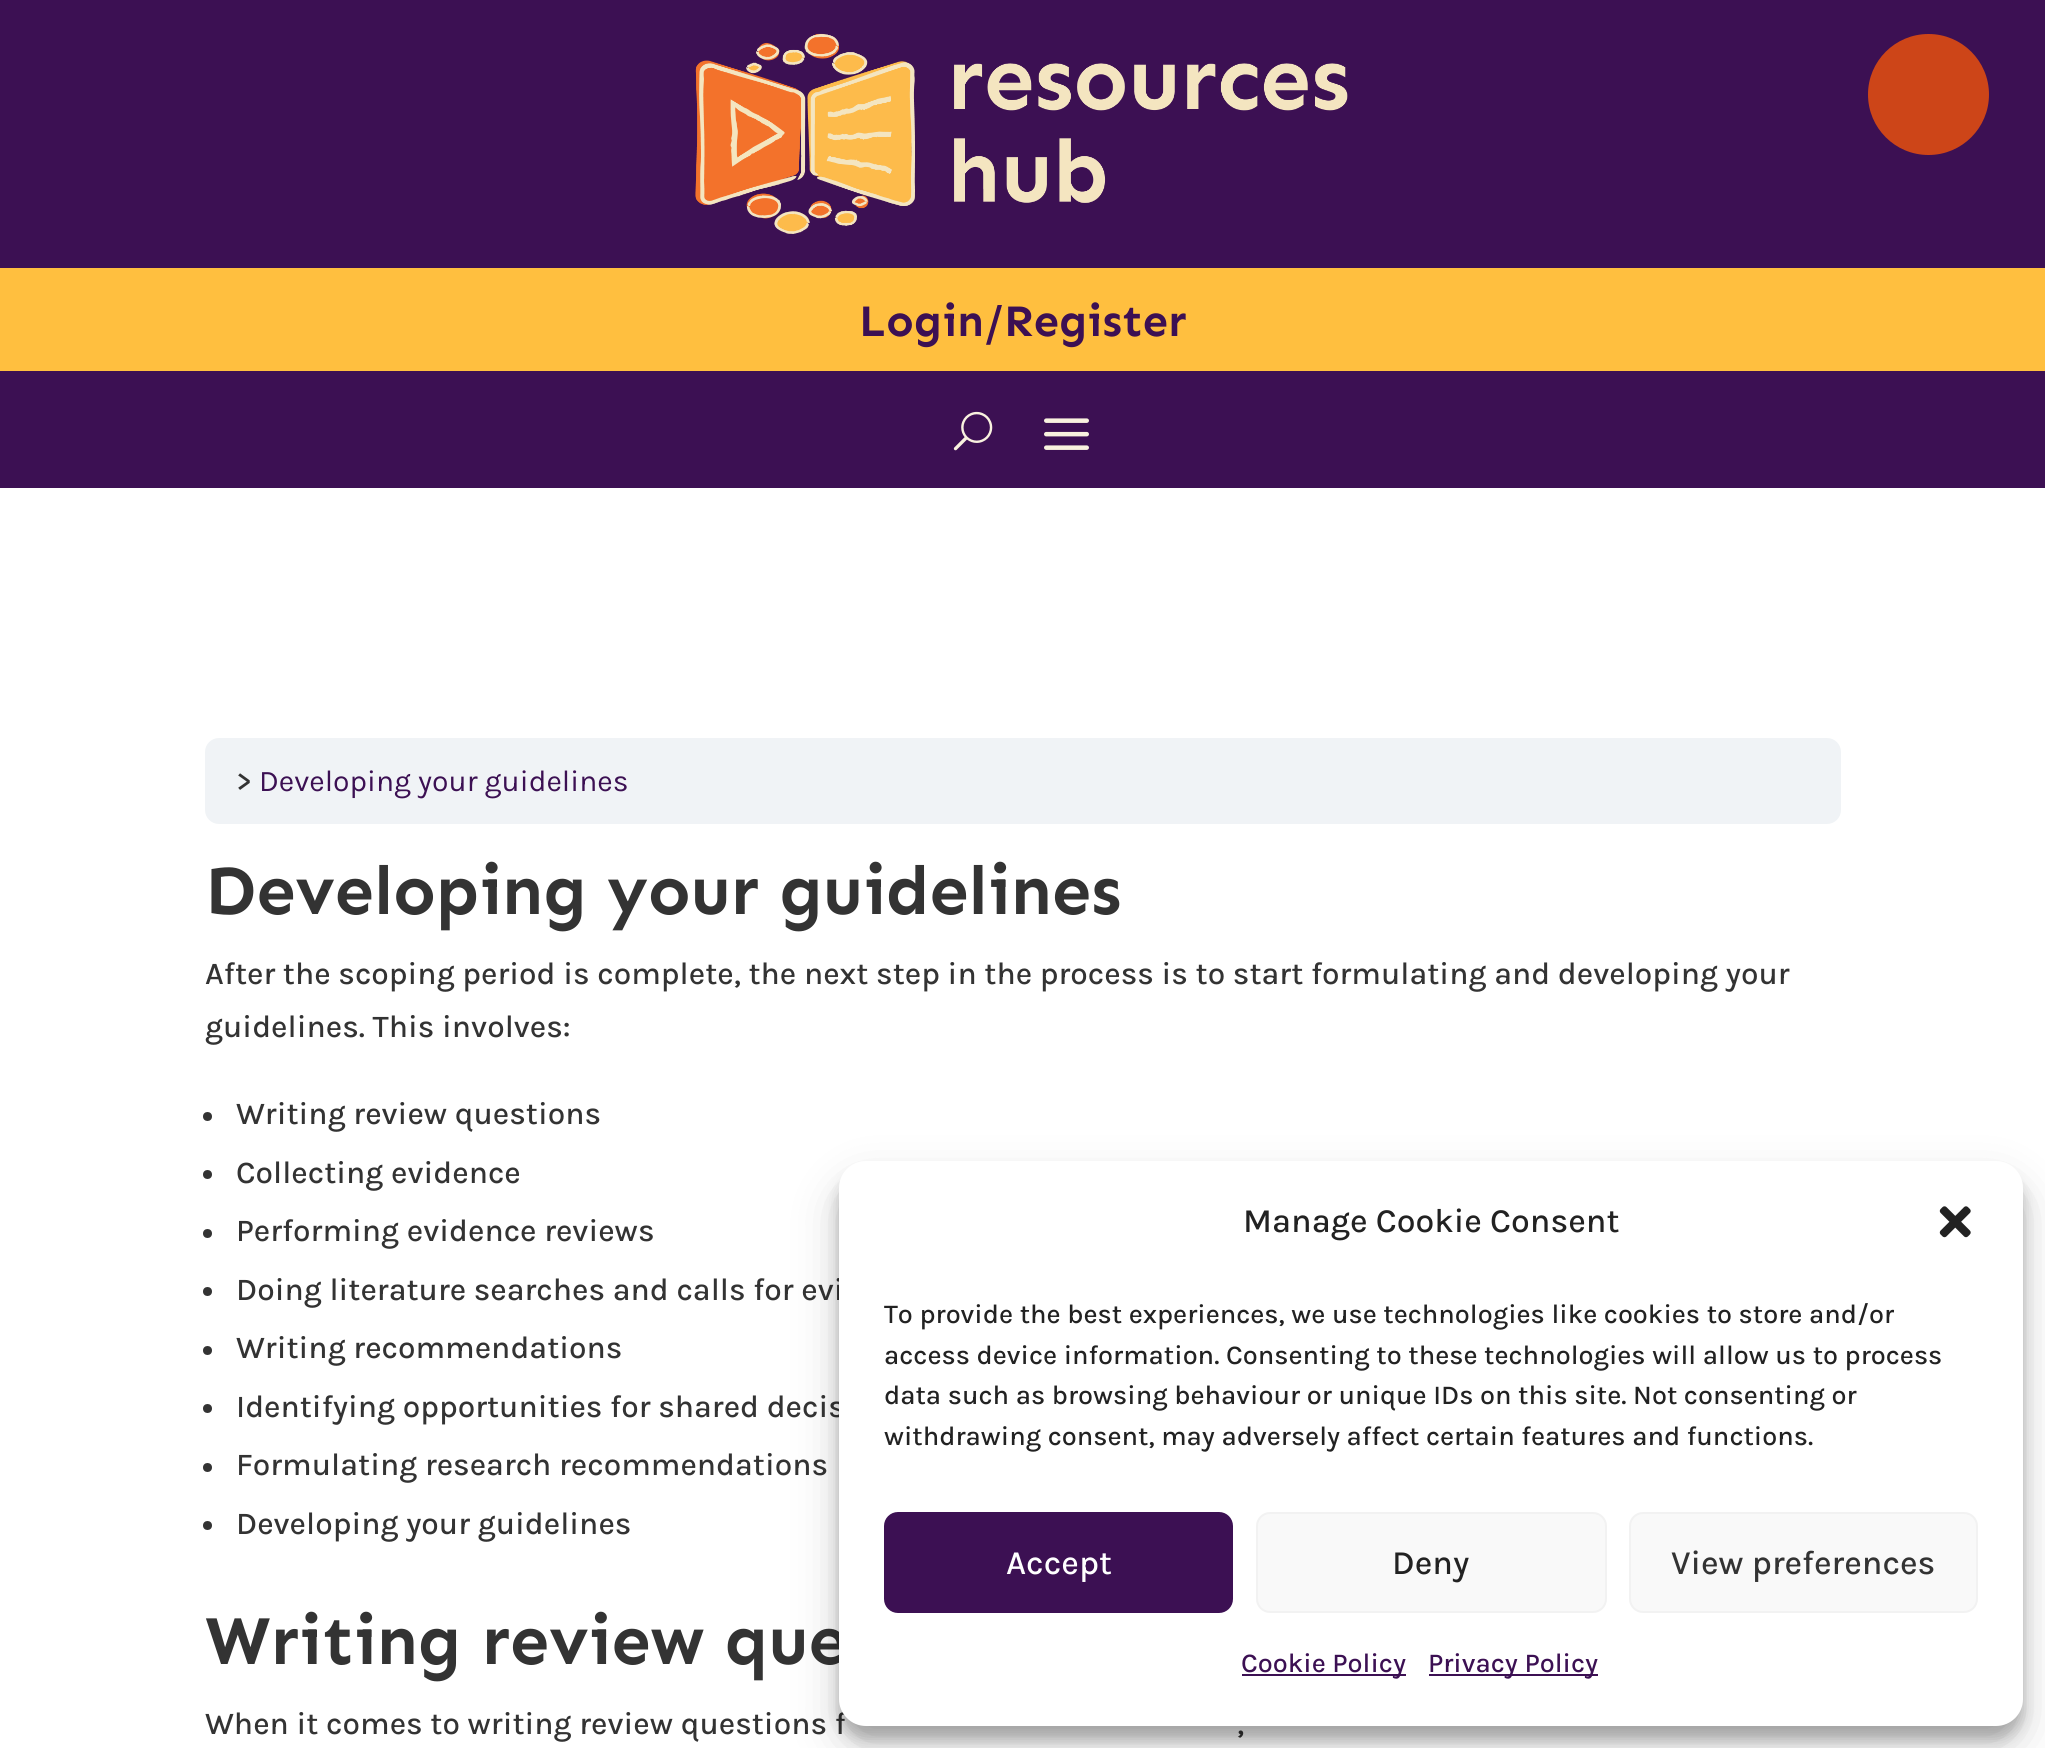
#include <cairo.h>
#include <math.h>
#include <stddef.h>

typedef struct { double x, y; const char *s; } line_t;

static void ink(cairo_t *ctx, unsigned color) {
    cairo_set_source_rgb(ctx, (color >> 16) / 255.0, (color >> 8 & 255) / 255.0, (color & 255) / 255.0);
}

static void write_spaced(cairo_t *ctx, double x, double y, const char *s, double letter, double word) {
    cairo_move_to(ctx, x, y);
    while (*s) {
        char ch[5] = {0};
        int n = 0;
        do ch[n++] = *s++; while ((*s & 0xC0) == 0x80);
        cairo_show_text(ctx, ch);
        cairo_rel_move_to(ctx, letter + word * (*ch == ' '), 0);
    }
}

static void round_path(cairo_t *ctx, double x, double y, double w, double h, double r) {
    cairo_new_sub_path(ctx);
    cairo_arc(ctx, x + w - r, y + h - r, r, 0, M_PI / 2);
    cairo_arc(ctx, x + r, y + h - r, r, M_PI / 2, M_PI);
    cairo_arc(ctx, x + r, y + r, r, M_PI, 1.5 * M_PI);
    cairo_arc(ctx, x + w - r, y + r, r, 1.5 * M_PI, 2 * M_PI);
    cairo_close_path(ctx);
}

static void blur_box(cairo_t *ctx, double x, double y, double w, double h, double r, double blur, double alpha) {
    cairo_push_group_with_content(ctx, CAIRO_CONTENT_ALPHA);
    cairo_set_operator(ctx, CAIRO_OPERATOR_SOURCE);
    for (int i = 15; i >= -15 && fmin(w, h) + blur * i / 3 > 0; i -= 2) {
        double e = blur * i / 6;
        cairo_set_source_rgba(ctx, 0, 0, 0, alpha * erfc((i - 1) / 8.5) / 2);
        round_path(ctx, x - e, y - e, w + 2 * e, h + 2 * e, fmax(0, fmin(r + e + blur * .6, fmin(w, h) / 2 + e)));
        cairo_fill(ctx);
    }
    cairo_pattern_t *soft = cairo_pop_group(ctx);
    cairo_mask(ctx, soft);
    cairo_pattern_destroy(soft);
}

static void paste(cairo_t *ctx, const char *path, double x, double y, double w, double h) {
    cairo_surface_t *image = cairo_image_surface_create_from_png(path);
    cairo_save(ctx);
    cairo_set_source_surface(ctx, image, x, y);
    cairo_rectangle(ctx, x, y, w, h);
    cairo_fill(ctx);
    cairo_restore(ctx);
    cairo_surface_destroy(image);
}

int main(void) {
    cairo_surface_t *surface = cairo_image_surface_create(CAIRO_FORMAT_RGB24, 2045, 1748);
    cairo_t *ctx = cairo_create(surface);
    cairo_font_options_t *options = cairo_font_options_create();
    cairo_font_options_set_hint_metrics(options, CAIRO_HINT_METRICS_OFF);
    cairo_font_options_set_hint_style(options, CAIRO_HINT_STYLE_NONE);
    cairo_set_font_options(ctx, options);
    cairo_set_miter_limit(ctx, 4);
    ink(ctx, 0xFFFFFF);
    cairo_paint(ctx);
    ink(ctx, 0x3C1053);
    cairo_rectangle(ctx, 0, 0, 2045, 268);
    cairo_fill(ctx);
    ink(ctx, 0xCD4518);
    cairo_arc(ctx, 1928.5, 94.5, 60.5, 0, 2 * M_PI);
    cairo_fill(ctx);
    paste(ctx, "media/1.png", 695, 33, 653, 201);
    ink(ctx, 0xFFBF3F);
    cairo_rectangle(ctx, 0, 268, 2045, 103);
    cairo_fill(ctx);
    cairo_select_font_face(ctx, "Sen", CAIRO_FONT_SLANT_NORMAL, CAIRO_FONT_WEIGHT_BOLD);
    cairo_set_font_size(ctx, 45);
    ink(ctx, 0x3C1053);
    write_spaced(ctx, 859, 336, "Login/Register", 0.25, 0);
    cairo_rectangle(ctx, 0, 371, 2045, 117);
    cairo_fill(ctx);
    paste(ctx, "media/2.png", 953, 411, 40, 40);
    paste(ctx, "media/3.png", 1044, 418, 45, 32);
    ink(ctx, 0xF0F3F6);
    round_path(ctx, 205, 738, 1636, 86, 14);
    cairo_fill(ctx);
    cairo_select_font_face(ctx, "Karla Medium", CAIRO_FONT_SLANT_NORMAL, CAIRO_FONT_WEIGHT_NORMAL);
    cairo_set_font_size(ctx, 30);
    ink(ctx, 0x333333);
    cairo_move_to(ctx, 236, 791);
    cairo_show_text(ctx, ">");
    cairo_select_font_face(ctx, "Karla", CAIRO_FONT_SLANT_NORMAL, CAIRO_FONT_WEIGHT_NORMAL);
    ink(ctx, 0x3C1053);
    cairo_move_to(ctx, 259, 791);
    cairo_show_text(ctx, "Developing your guidelines");
    cairo_select_font_face(ctx, "Sen", CAIRO_FONT_SLANT_NORMAL, CAIRO_FONT_WEIGHT_BOLD);
    cairo_set_font_size(ctx, 69.75);
    ink(ctx, 0x333333);
    cairo_move_to(ctx, 205, 914);
    cairo_show_text(ctx, "Developing your guidelines");
    cairo_select_font_face(ctx, "Karla Medium", CAIRO_FONT_SLANT_NORMAL, CAIRO_FONT_WEIGHT_NORMAL);
    cairo_set_font_size(ctx, 31.5);
    cairo_move_to(ctx, 205, 984);
    cairo_show_text(ctx, "After the scoping period is complete, the next step in the process is to start formulating and developing your");
    cairo_move_to(ctx, 205, 1037);
    cairo_show_text(ctx, "guidelines. This involves:");
    cairo_new_path(ctx);
    cairo_arc(ctx, 207.5, 1116.5, 4.5, 0, 2 * M_PI);
    cairo_fill(ctx);
    cairo_move_to(ctx, 236, 1124);
    cairo_show_text(ctx, "Writing review questions");
    cairo_new_path(ctx);
    cairo_arc(ctx, 207.5, 1174.5, 4.5, 0, 2 * M_PI);
    cairo_fill(ctx);
    cairo_move_to(ctx, 236, 1183);
    cairo_show_text(ctx, "Collecting evidence");
    cairo_new_path(ctx);
    cairo_arc(ctx, 207.5, 1233.5, 4.5, 0, 2 * M_PI);
    cairo_fill(ctx);
    cairo_move_to(ctx, 236, 1241);
    cairo_show_text(ctx, "Performing evidence reviews");
    cairo_new_path(ctx);
    cairo_arc(ctx, 207.5, 1291.5, 4.5, 0, 2 * M_PI);
    cairo_fill(ctx);
    cairo_move_to(ctx, 236, 1300);
    cairo_show_text(ctx, "Doing literature searches and calls for evi");
    cairo_new_path(ctx);
    cairo_arc(ctx, 207.5, 1350.5, 4.5, 0, 2 * M_PI);
    cairo_fill(ctx);
    cairo_move_to(ctx, 236, 1358);
    cairo_show_text(ctx, "Writing recommendations");
    cairo_new_path(ctx);
    cairo_arc(ctx, 207.5, 1408.5, 4.5, 0, 2 * M_PI);
    cairo_fill(ctx);
    cairo_move_to(ctx, 236, 1417);
    cairo_show_text(ctx, "Identifying opportunities for shared decis");
    cairo_new_path(ctx);
    cairo_arc(ctx, 207.5, 1467.5, 4.5, 0, 2 * M_PI);
    cairo_fill(ctx);
    cairo_move_to(ctx, 236, 1475);
    cairo_show_text(ctx, "Formulating research recommendations");
    cairo_new_path(ctx);
    cairo_arc(ctx, 207.5, 1525.5, 4.5, 0, 2 * M_PI);
    cairo_fill(ctx);
    cairo_move_to(ctx, 236, 1534);
    cairo_show_text(ctx, "Developing your guidelines");
    cairo_select_font_face(ctx, "Sen", CAIRO_FONT_SLANT_NORMAL, CAIRO_FONT_WEIGHT_BOLD);
    cairo_set_font_size(ctx, 69.75);
    cairo_move_to(ctx, 205, 1664);
    cairo_show_text(ctx, "Writing review que");
    cairo_select_font_face(ctx, "Karla Medium", CAIRO_FONT_SLANT_NORMAL, CAIRO_FONT_WEIGHT_NORMAL);
    cairo_set_font_size(ctx, 31.5);
    cairo_move_to(ctx, 205, 1734);
    cairo_show_text(ctx, "When it comes to writing review questions f");
    cairo_move_to(ctx, 1237, 1734);
    cairo_show_text(ctx, ",");
    ink(ctx, 0x000000);
    blur_box(ctx, 839, 1175, 1184, 564, 27, 7, 0.23);
    blur_box(ctx, 839, 1184, 1184, 564, 27, 22.5, 0.19);
    ink(ctx, 0xFFFFFF);
    round_path(ctx, 839, 1161, 1184, 565, 27);
    cairo_fill(ctx);
    cairo_set_font_size(ctx, 33.75);
    ink(ctx, 0x222222);
    cairo_move_to(ctx, 1243, 1232);
    cairo_show_text(ctx, "Manage Cookie Consent");
    paste(ctx, "media/4.png", 1939, 1206, 32, 32);
    cairo_set_font_size(ctx, 27);
    {
        static const line_t items[] = {
            {884, 1323, "To provide the best experiences, we use technologies like cookies to store and/or"},
            {884, 1364, "access device information. Consenting to these technologies will allow us to process"},
            {884, 1404, "data such as browsing behaviour or unique IDs on this site. Not consenting or"},
            {884, 1445, "withdrawing consent, may adversely affect certain features and functions."},
        };
        for (size_t i = 0; i < sizeof items / sizeof *items; i++) {
            cairo_move_to(ctx, items[i].x, items[i].y);
            cairo_show_text(ctx, items[i].s);
        }
    }
    ink(ctx, 0x3C1053);
    round_path(ctx, 885, 1513, 347, 99, 13);
    cairo_fill_preserve(ctx);
    cairo_stroke(ctx);
    cairo_set_font_size(ctx, 33.75);
    ink(ctx, 0xFFFFFF);
    cairo_move_to(ctx, 1006, 1574);
    cairo_show_text(ctx, "Accept");
    ink(ctx, 0xF9F9F9);
    round_path(ctx, 1257, 1513, 349, 99, 13);
    cairo_fill_preserve(ctx);
    ink(ctx, 0xF2F2F2);
    cairo_stroke(ctx);
    ink(ctx, 0x222222);
    cairo_move_to(ctx, 1392, 1574);
    cairo_show_text(ctx, "Deny");
    ink(ctx, 0xF9F9F9);
    round_path(ctx, 1630, 1513, 347, 99, 13);
    cairo_fill_preserve(ctx);
    ink(ctx, 0xF2F2F2);
    cairo_stroke(ctx);
    ink(ctx, 0x333333);
    cairo_move_to(ctx, 1671, 1574);
    cairo_show_text(ctx, "View preferences");
    ink(ctx, 0x3C1053);
    cairo_rectangle(ctx, 1242, 1674, 164, 2);
    cairo_fill(ctx);
    cairo_set_font_size(ctx, 27);
    cairo_move_to(ctx, 1241, 1672);
    cairo_show_text(ctx, "Cookie Policy");
    cairo_rectangle(ctx, 1429, 1674, 169, 2);
    cairo_fill(ctx);
    cairo_move_to(ctx, 1428, 1672);
    cairo_show_text(ctx, "Privacy Policy");
    cairo_surface_write_to_png(surface, "image.png");
    cairo_font_options_destroy(options);
    cairo_destroy(ctx);
    cairo_surface_destroy(surface);
    return 0;
}
